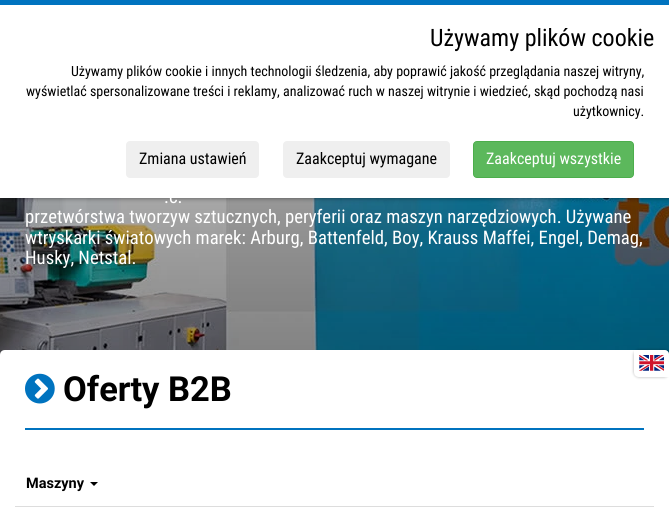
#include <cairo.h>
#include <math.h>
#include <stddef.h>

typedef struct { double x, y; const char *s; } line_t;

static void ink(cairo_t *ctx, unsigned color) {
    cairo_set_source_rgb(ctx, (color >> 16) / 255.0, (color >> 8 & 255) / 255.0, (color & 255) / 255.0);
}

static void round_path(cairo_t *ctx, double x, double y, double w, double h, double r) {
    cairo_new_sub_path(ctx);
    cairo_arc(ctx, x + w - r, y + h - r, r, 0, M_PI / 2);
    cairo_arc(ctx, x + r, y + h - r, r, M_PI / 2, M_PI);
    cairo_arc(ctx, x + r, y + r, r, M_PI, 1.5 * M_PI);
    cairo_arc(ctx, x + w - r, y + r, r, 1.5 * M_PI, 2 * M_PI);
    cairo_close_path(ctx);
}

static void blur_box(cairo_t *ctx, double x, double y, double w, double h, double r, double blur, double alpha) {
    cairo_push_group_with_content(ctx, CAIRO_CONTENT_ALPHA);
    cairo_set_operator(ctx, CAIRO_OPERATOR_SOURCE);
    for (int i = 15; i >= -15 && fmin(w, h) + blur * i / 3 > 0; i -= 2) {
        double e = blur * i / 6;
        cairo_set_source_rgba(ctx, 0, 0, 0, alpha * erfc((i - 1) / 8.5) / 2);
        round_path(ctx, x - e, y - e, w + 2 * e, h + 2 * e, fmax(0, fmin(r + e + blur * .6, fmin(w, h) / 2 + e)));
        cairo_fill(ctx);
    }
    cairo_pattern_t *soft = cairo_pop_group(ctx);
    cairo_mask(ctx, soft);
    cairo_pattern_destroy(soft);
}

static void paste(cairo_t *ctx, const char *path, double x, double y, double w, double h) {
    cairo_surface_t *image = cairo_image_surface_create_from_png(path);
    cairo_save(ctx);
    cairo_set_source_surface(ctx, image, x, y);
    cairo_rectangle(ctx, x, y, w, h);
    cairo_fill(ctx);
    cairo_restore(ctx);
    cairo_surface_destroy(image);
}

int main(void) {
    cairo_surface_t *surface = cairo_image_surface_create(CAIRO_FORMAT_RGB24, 669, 515);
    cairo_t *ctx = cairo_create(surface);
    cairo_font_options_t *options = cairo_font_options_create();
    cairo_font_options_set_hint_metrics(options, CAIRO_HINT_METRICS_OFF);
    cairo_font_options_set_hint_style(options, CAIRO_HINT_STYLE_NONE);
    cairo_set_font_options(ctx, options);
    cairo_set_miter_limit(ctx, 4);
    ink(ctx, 0xFFFFFF);
    cairo_paint(ctx);
    paste(ctx, "media/1.png", 0, 198, 669, 157);
    ink(ctx, 0x000000);
    blur_box(ctx, 0, 0, 669, 198, 0, 2.5, 0.5);
    ink(ctx, 0xFFFFFF);
    cairo_rectangle(ctx, 0, 5, 669, 193);
    cairo_fill(ctx);
    ink(ctx, 0x0073BF);
    cairo_rectangle(ctx, 0, 0, 669, 5);
    cairo_fill(ctx);
    cairo_select_font_face(ctx, "Roboto Condensed", CAIRO_FONT_SLANT_NORMAL, CAIRO_FONT_WEIGHT_NORMAL);
    cairo_set_font_size(ctx, 24);
    ink(ctx, 0x000000);
    cairo_move_to(ctx, 430, 46);
    cairo_show_text(ctx, "Używamy plików cookie");
    cairo_set_font_size(ctx, 14);
    {
        static const line_t items[] = {
            {71, 76, "Używamy plików cookie i innych technologii śledzenia, aby poprawić jakość przeglądania naszej witryny,"},
            {26, 96, "wyświetlać spersonalizowane treści i reklamy, analizować ruch w naszej witrynie i wiedzieć, skąd pochodzą nasi"},
            {573, 116, "użytkownicy."},
        };
        for (size_t i = 0; i < sizeof items / sizeof *items; i++) {
            cairo_move_to(ctx, items[i].x, items[i].y);
            cairo_show_text(ctx, items[i].s);
        }
    }
    ink(ctx, 0xEFEFEF);
    round_path(ctx, 126, 141, 133, 37, 4);
    cairo_fill(ctx);
    cairo_set_font_size(ctx, 16);
    ink(ctx, 0x000000);
    cairo_move_to(ctx, 139, 164);
    cairo_show_text(ctx, "Zmiana ustawień");
    ink(ctx, 0xEFEFEF);
    round_path(ctx, 283, 141, 167, 37, 4);
    cairo_fill(ctx);
    ink(ctx, 0x000000);
    cairo_move_to(ctx, 296, 164);
    cairo_show_text(ctx, "Zaakceptuj wymagane");
    ink(ctx, 0x5CB85C);
    round_path(ctx, 473.5, 141.5, 160, 36, 3.5);
    cairo_fill_preserve(ctx);
    ink(ctx, 0x4CAE4C);
    cairo_set_line_width(ctx, 1);
    cairo_stroke(ctx);
    ink(ctx, 0xFFFFFF);
    cairo_move_to(ctx, 486, 164);
    cairo_show_text(ctx, "Zaakceptuj wszystkie");
    cairo_set_font_size(ctx, 18.7);
    {
        static const line_t items[] = {
            {164, 203, ".c."},
            {25, 223, "przetwórstwa tworzyw sztucznych, peryferii oraz maszyn narzędziowych. Używane"},
            {25, 244, "wtryskarki światowych marek: Arburg, Battenfeld, Boy, Krauss Maffei, Engel, Demag,"},
            {25, 264, "Husky, Netstal."},
        };
        for (size_t i = 0; i < sizeof items / sizeof *items; i++) {
            cairo_move_to(ctx, items[i].x, items[i].y);
            cairo_show_text(ctx, items[i].s);
        }
    }
    cairo_new_path(ctx);
    cairo_move_to(ctx, 5, 350);
    cairo_line_to(ctx, 664, 350);
    cairo_curve_to(ctx, 667, 350, 669, 352, 669, 355);
    cairo_line_to(ctx, 669, 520);
    cairo_line_to(ctx, 0, 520);
    cairo_line_to(ctx, 0, 355);
    cairo_curve_to(ctx, 0, 352, 2, 350, 5, 350);
    cairo_close_path(ctx);
    cairo_fill(ctx);
    ink(ctx, 0x000000);
    blur_box(ctx, 634, 350, 35, 27, 5, 1.5, 0.3);
    ink(ctx, 0xFFFFFF);
    cairo_new_path(ctx);
    cairo_move_to(ctx, 634, 350);
    cairo_line_to(ctx, 664, 350);
    cairo_curve_to(ctx, 667, 350, 669, 352, 669, 355);
    cairo_line_to(ctx, 669, 377);
    cairo_line_to(ctx, 639, 377);
    cairo_curve_to(ctx, 636, 377, 634, 375, 634, 372);
    cairo_close_path(ctx);
    cairo_fill(ctx);
    paste(ctx, "media/2.png", 639, 355, 25, 16);
    ink(ctx, 0x0073BF);
    cairo_rectangle(ctx, 25, 428, 619, 2);
    cairo_fill(ctx);
    paste(ctx, "media/3.png", 25, 373, 30, 31);
    cairo_select_font_face(ctx, "Roboto", CAIRO_FONT_SLANT_NORMAL, CAIRO_FONT_WEIGHT_BOLD);
    cairo_set_font_size(ctx, 34.5);
    ink(ctx, 0x000000);
    cairo_move_to(ctx, 63, 401);
    cairo_show_text(ctx, "Oferty B2B");
    ink(ctx, 0xDDDDDD);
    cairo_rectangle(ctx, 15, 506, 639, 1);
    cairo_fill(ctx);
    cairo_set_font_size(ctx, 14.5);
    ink(ctx, 0x000000);
    cairo_move_to(ctx, 26, 488);
    cairo_show_text(ctx, "Maszyny");
    cairo_new_path(ctx);
    cairo_move_to(ctx, 90, 482);
    cairo_line_to(ctx, 98, 482);
    cairo_line_to(ctx, 94, 486);
    cairo_close_path(ctx);
    cairo_fill(ctx);
    cairo_surface_write_to_png(surface, "image.png");
    cairo_font_options_destroy(options);
    cairo_destroy(ctx);
    cairo_surface_destroy(surface);
    return 0;
}
